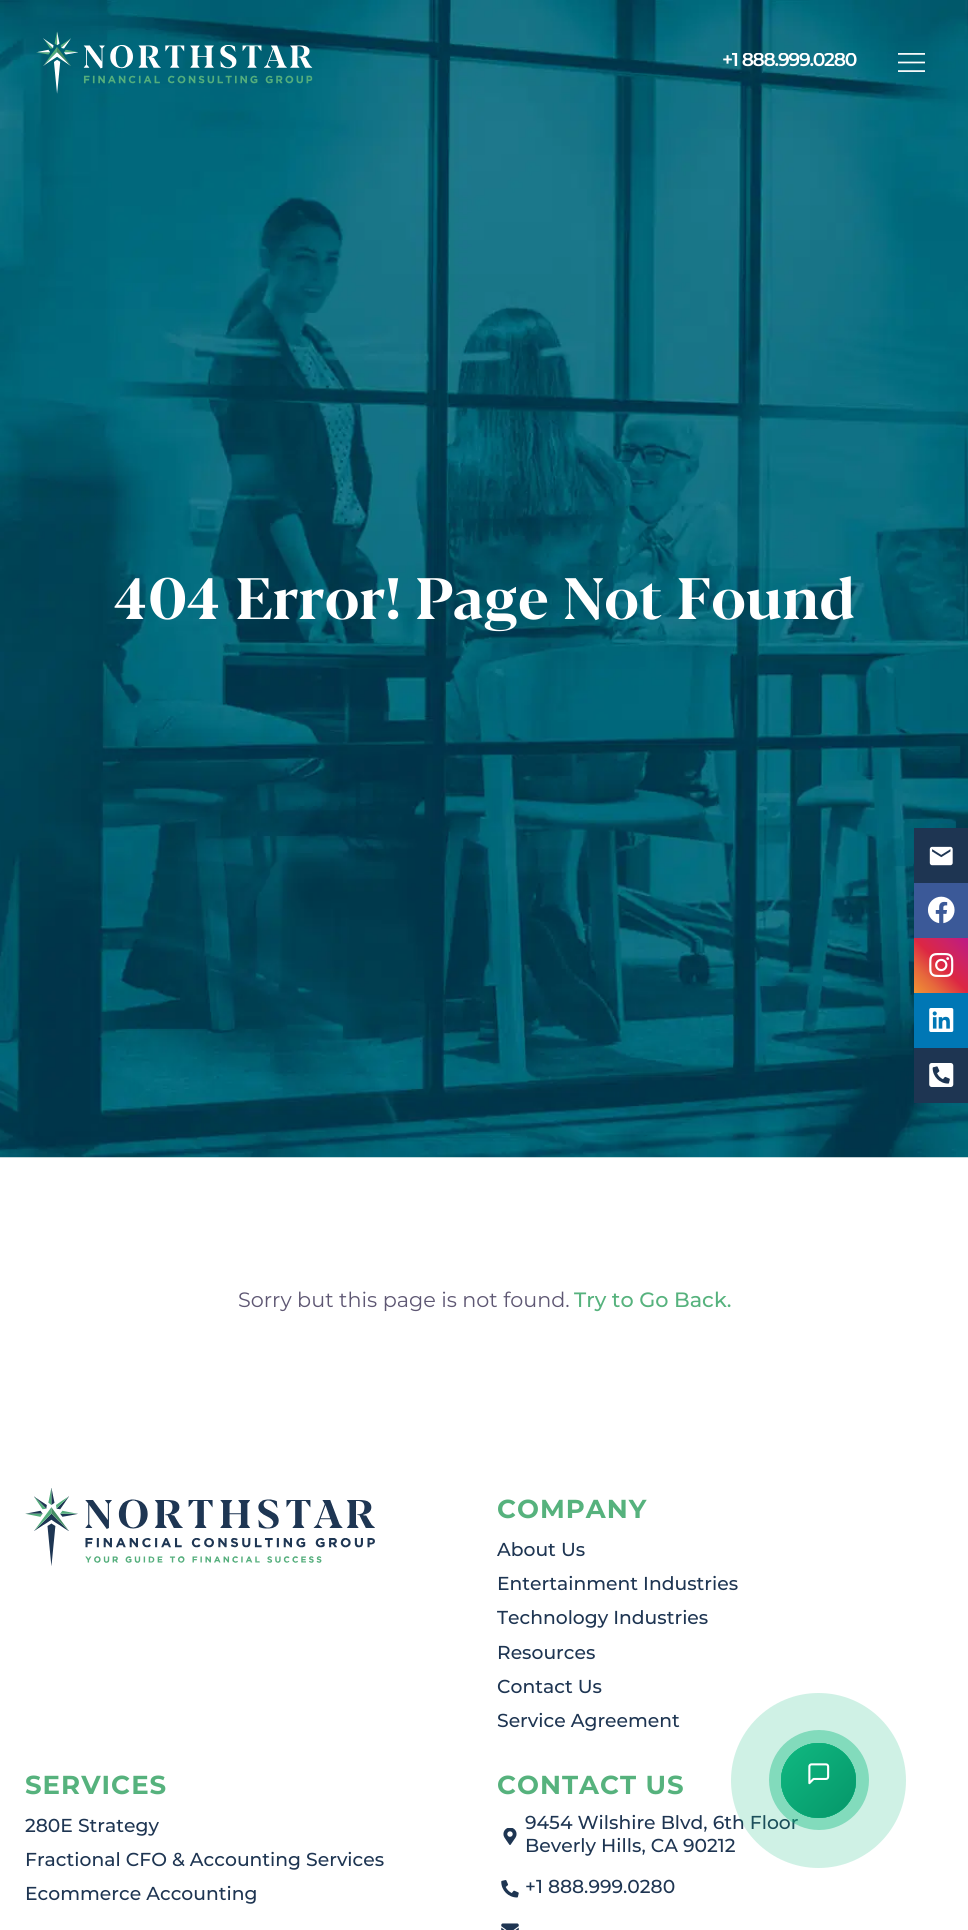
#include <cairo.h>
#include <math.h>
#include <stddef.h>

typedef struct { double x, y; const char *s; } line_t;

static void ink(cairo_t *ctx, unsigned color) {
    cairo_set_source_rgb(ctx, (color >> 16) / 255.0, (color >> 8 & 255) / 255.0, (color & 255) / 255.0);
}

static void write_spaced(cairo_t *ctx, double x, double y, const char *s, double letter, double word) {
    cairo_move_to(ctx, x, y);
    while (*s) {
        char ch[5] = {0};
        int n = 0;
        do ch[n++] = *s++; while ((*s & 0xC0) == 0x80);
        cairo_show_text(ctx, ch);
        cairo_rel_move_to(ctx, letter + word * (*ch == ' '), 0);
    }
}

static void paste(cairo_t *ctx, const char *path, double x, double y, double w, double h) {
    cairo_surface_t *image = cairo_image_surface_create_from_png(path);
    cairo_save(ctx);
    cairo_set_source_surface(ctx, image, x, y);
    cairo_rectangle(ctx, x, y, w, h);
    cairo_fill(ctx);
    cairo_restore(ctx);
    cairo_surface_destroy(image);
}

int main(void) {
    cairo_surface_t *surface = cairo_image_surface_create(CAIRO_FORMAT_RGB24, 968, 1930);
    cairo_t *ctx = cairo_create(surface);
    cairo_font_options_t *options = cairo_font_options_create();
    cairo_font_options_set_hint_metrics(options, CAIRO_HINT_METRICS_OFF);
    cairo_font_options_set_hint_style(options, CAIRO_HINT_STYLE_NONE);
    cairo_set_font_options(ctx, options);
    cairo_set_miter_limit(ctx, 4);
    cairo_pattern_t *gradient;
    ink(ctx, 0xFFFFFF);
    cairo_paint(ctx);
    paste(ctx, "media/3.png", 0, 0, 968, 1158);
    paste(ctx, "media/1.png", 36, 31, 277, 63);
    cairo_save(ctx);
    cairo_rectangle(ctx, 709, 53, 156, 31);
    cairo_clip(ctx);
    cairo_select_font_face(ctx, "Montserrat SemiBold", CAIRO_FONT_SLANT_NORMAL, CAIRO_FONT_WEIGHT_NORMAL);
    cairo_set_font_size(ctx, 18.75);
    ink(ctx, 0xFFFFFF);
    write_spaced(ctx, 722, 66, "+1 888.999.0280", -1.25, 0);
    cairo_restore(ctx);
    paste(ctx, "media/2.png", 898, 53, 27, 19);
    cairo_select_font_face(ctx, "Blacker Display", CAIRO_FONT_SLANT_NORMAL, CAIRO_FONT_WEIGHT_BOLD);
    cairo_set_font_size(ctx, 58.1);
    ink(ctx, 0xFFFFFF);
    cairo_move_to(ctx, 114, 619);
    cairo_show_text(ctx, "404 Error! Page Not Found");
    cairo_select_font_face(ctx, "Montserrat", CAIRO_FONT_SLANT_NORMAL, CAIRO_FONT_WEIGHT_NORMAL);
    cairo_set_font_size(ctx, 20.75);
    ink(ctx, 0x5E5773);
    cairo_move_to(ctx, 238, 1307);
    cairo_show_text(ctx, "Sorry but this page is not found.");
    cairo_select_font_face(ctx, "Montserrat Medium", CAIRO_FONT_SLANT_NORMAL, CAIRO_FONT_WEIGHT_NORMAL);
    ink(ctx, 0x56B27D);
    cairo_move_to(ctx, 574, 1307);
    cairo_show_text(ctx, "Try to Go Back.");
    ink(ctx, 0x1E3552);
    cairo_rectangle(ctx, 914, 828, 54, 55);
    cairo_fill(ctx);
    paste(ctx, "media/4.png", 929, 846, 24, 20);
    ink(ctx, 0x3B5998);
    cairo_rectangle(ctx, 914, 883, 54, 55);
    cairo_fill(ctx);
    paste(ctx, "media/5.png", 928, 896, 27, 28);
    gradient = cairo_pattern_create_linear(914, 993, 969, 938);
    cairo_pattern_add_color_stop_rgba(gradient, 0, 0.941, 0.58, 0.2, 1);
    cairo_pattern_add_color_stop_rgba(gradient, 0.25, 0.902, 0.408, 0.235, 1);
    cairo_pattern_add_color_stop_rgba(gradient, 0.5, 0.863, 0.153, 0.263, 1);
    cairo_pattern_add_color_stop_rgba(gradient, 0.75, 0.8, 0.137, 0.4, 1);
    cairo_pattern_add_color_stop_rgba(gradient, 1, 0.737, 0.094, 0.533, 1);
    cairo_set_source(ctx, gradient);
    cairo_pattern_destroy(gradient);
    cairo_rectangle(ctx, 914, 938, 54, 55);
    cairo_fill(ctx);
    paste(ctx, "media/6.png", 929, 952, 25, 25);
    ink(ctx, 0x0077B5);
    cairo_rectangle(ctx, 914, 993, 54, 55);
    cairo_fill(ctx);
    paste(ctx, "media/7.png", 929, 1008, 25, 24);
    ink(ctx, 0x1E3552);
    cairo_rectangle(ctx, 914, 1048, 54, 55);
    cairo_fill(ctx);
    paste(ctx, "media/8.png", 929, 1063, 25, 24);
    paste(ctx, "media/9.png", 25, 1488, 350, 78);
    cairo_select_font_face(ctx, "Montserrat", CAIRO_FONT_SLANT_NORMAL, CAIRO_FONT_WEIGHT_BOLD);
    cairo_set_font_size(ctx, 26);
    ink(ctx, 0x56B27D);
    write_spaced(ctx, 497, 1518, "COMPANY", 1, 0);
    cairo_select_font_face(ctx, "Montserrat Medium", CAIRO_FONT_SLANT_NORMAL, CAIRO_FONT_WEIGHT_NORMAL);
    cairo_set_font_size(ctx, 18.75);
    ink(ctx, 0x1E3552);
    {
        static const line_t items[] = {
            {497, 1556, "About Us"},
            {497, 1590, "Entertainment Industries"},
            {497, 1624, "Technology Industries"},
            {497, 1659, "Resources"},
            {497, 1693, "Contact Us"},
            {497, 1727, "Service Agreement"},
        };
        for (size_t i = 0; i < sizeof items / sizeof *items; i++) {
            cairo_move_to(ctx, items[i].x, items[i].y);
            cairo_show_text(ctx, items[i].s);
        }
    }
    cairo_select_font_face(ctx, "Montserrat", CAIRO_FONT_SLANT_NORMAL, CAIRO_FONT_WEIGHT_BOLD);
    cairo_set_font_size(ctx, 26);
    ink(ctx, 0x56B27D);
    write_spaced(ctx, 25, 1794, "SERVICES", 1, 0);
    cairo_select_font_face(ctx, "Montserrat Medium", CAIRO_FONT_SLANT_NORMAL, CAIRO_FONT_WEIGHT_NORMAL);
    cairo_set_font_size(ctx, 18.75);
    ink(ctx, 0x1E3552);
    {
        static const line_t items[] = {
            {25, 1832, "280E Strategy"},
            {25, 1866, "Fractional CFO & Accounting Services"},
            {25, 1900, "Ecommerce Accounting"},
        };
        for (size_t i = 0; i < sizeof items / sizeof *items; i++) {
            cairo_move_to(ctx, items[i].x, items[i].y);
            cairo_show_text(ctx, items[i].s);
        }
    }
    cairo_select_font_face(ctx, "Montserrat", CAIRO_FONT_SLANT_NORMAL, CAIRO_FONT_WEIGHT_BOLD);
    cairo_set_font_size(ctx, 26);
    ink(ctx, 0x56B27D);
    write_spaced(ctx, 497, 1794, "CONTACT US", 1, 0);
    paste(ctx, "media/10.png", 503, 1828, 14, 17);
    cairo_select_font_face(ctx, "Montserrat Medium", CAIRO_FONT_SLANT_NORMAL, CAIRO_FONT_WEIGHT_NORMAL);
    cairo_set_font_size(ctx, 18.75);
    ink(ctx, 0x1E3552);
    cairo_move_to(ctx, 525, 1829);
    cairo_show_text(ctx, "9454 Wilshire Blvd, 6th Floor");
    cairo_move_to(ctx, 525, 1852);
    cairo_show_text(ctx, "Beverly Hills, CA 90212");
    paste(ctx, "media/11.png", 501, 1880, 18, 18);
    cairo_move_to(ctx, 525, 1893);
    cairo_show_text(ctx, "+1 888.999.0280");
    paste(ctx, "media/12.png", 501, 1923, 18, 7);
    cairo_arc(ctx, 818.5, 1780.5, 36, 0, 2 * M_PI);
    ink(ctx, 0x40C79A);
    cairo_set_line_width(ctx, 3);
    cairo_stroke(ctx);
    cairo_arc(ctx, 818.5, 1780.5, 36, 0, 2 * M_PI);
    cairo_set_source_rgba(ctx, 0.063, 0.725, 0.506, 0.8);
    cairo_stroke(ctx);
    cairo_arc(ctx, 818.5, 1780.5, 36, 0, 2 * M_PI);
    cairo_stroke(ctx);
    cairo_arc(ctx, 818.5, 1780.5, 36, 0, 2 * M_PI);
    cairo_stroke(ctx);
    cairo_set_source_rgba(ctx, 0.063, 0.725, 0.506, 0.2);
    cairo_arc(ctx, 818.5, 1780.5, 87.5, 0, 2 * M_PI);
    cairo_fill(ctx);
    cairo_set_source_rgba(ctx, 0.063, 0.725, 0.506, 0.4);
    cairo_arc(ctx, 819, 1780, 50, 0, 2 * M_PI);
    cairo_fill(ctx);
    gradient = cairo_pattern_create_linear(781, 1743, 856, 1818);
    cairo_pattern_add_color_stop_rgba(gradient, 0, 0.063, 0.725, 0.506, 1);
    cairo_pattern_add_color_stop_rgba(gradient, 1, 0.02, 0.588, 0.412, 1);
    cairo_set_source(ctx, gradient);
    cairo_pattern_destroy(gradient);
    cairo_arc(ctx, 818.5, 1780.5, 37.5, 0, 2 * M_PI);
    cairo_fill(ctx);
    paste(ctx, "media/13.png", 808, 1763, 22, 22);
    cairo_surface_write_to_png(surface, "image.png");
    cairo_font_options_destroy(options);
    cairo_destroy(ctx);
    cairo_surface_destroy(surface);
    return 0;
}
